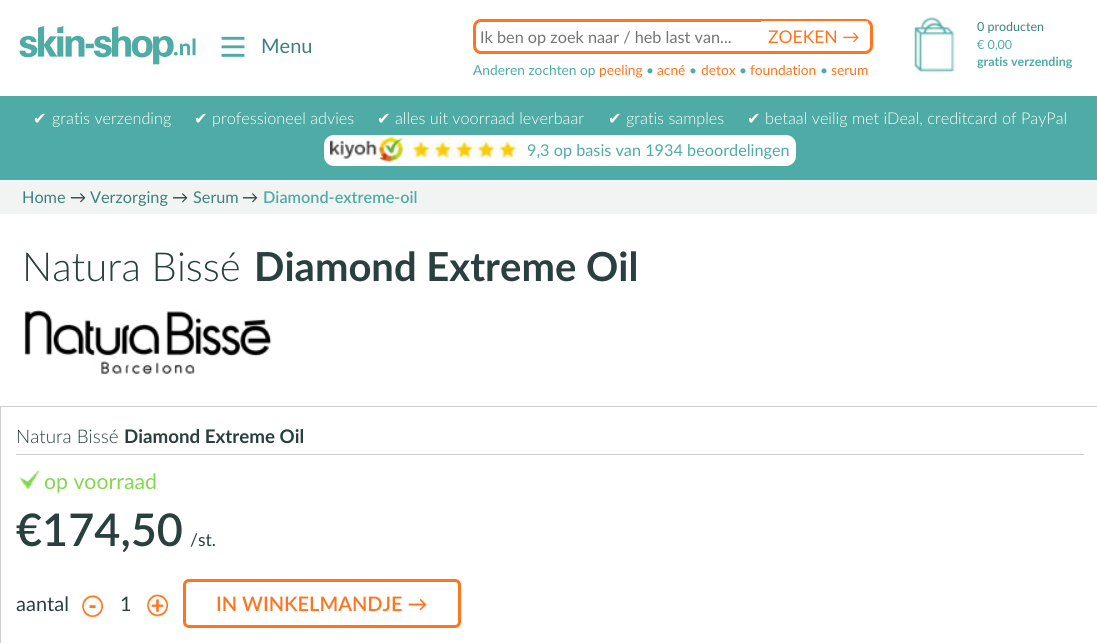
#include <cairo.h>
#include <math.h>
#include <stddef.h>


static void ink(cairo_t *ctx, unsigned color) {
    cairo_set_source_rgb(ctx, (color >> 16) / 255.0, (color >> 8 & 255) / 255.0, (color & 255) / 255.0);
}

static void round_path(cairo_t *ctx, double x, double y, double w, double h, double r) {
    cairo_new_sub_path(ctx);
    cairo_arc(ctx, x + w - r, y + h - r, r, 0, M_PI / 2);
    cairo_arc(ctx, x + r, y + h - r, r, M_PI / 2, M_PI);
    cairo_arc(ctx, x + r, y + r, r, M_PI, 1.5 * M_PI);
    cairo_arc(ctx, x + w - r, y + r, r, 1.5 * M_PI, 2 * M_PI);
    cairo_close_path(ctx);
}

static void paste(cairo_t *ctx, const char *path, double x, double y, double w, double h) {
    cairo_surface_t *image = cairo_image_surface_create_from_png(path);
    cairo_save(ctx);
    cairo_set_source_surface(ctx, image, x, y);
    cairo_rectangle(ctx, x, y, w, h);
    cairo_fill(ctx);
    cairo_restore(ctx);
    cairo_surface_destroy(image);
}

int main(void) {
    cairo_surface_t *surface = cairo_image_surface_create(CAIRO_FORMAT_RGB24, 1097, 643);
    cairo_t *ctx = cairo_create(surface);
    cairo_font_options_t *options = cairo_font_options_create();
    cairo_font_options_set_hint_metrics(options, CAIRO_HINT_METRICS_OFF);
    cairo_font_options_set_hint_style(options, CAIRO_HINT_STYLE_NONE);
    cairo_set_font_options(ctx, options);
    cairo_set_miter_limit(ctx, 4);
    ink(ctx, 0xFFFFFF);
    cairo_paint(ctx);
    paste(ctx, "media/1.png", 16, 25, 231, 42);
    cairo_select_font_face(ctx, "Lato", CAIRO_FONT_SLANT_NORMAL, CAIRO_FONT_WEIGHT_NORMAL);
    cairo_set_font_size(ctx, 20);
    ink(ctx, 0x3C817C);
    cairo_move_to(ctx, 261, 53);
    cairo_show_text(ctx, "Menu");
    round_path(ctx, 474.5, 20.5, 397, 32, 6.5);
    ink(ctx, 0xFF741F);
    cairo_set_line_width(ctx, 3);
    cairo_stroke(ctx);
    cairo_set_font_size(ctx, 16.25);
    ink(ctx, 0x757575);
    cairo_move_to(ctx, 480, 43);
    cairo_show_text(ctx, "Ik ben op zoek naar / heb last van...");
    ink(ctx, 0xFFFFFF);
    cairo_rectangle(ctx, 761, 21, 107, 2);
    cairo_fill(ctx);
    cairo_set_font_size(ctx, 17.5);
    ink(ctx, 0xFF741F);
    cairo_move_to(ctx, 768, 43);
    cairo_show_text(ctx, "ZOEKEN →");
    cairo_set_font_size(ctx, 13.75);
    ink(ctx, 0x4FABA5);
    cairo_move_to(ctx, 473, 75);
    cairo_show_text(ctx, "Anderen zochten op");
    ink(ctx, 0xFF741F);
    cairo_move_to(ctx, 599, 75);
    cairo_show_text(ctx, "peeling");
    ink(ctx, 0x4FABA5);
    cairo_move_to(ctx, 646, 75);
    cairo_show_text(ctx, "•");
    ink(ctx, 0xFF741F);
    cairo_move_to(ctx, 657, 75);
    cairo_show_text(ctx, "acné");
    ink(ctx, 0x4FABA5);
    cairo_move_to(ctx, 689, 75);
    cairo_show_text(ctx, "•");
    ink(ctx, 0xFF741F);
    cairo_move_to(ctx, 701, 75);
    cairo_show_text(ctx, "detox");
    ink(ctx, 0x4FABA5);
    cairo_move_to(ctx, 739, 75);
    cairo_show_text(ctx, "•");
    ink(ctx, 0xFF741F);
    cairo_move_to(ctx, 750, 75);
    cairo_show_text(ctx, "foundation");
    ink(ctx, 0x4FABA5);
    cairo_move_to(ctx, 820, 75);
    cairo_show_text(ctx, "•");
    ink(ctx, 0xFF741F);
    cairo_move_to(ctx, 831, 75);
    cairo_show_text(ctx, "serum");
    paste(ctx, "media/2.png", 913, 17, 42, 59);
    cairo_set_font_size(ctx, 12.5);
    ink(ctx, 0x3C817C);
    cairo_move_to(ctx, 977, 31);
    cairo_show_text(ctx, "0 producten");
    ink(ctx, 0x4FABA5);
    cairo_move_to(ctx, 977, 49);
    cairo_show_text(ctx, "€ 0,00");
    cairo_select_font_face(ctx, "Lato", CAIRO_FONT_SLANT_NORMAL, CAIRO_FONT_WEIGHT_BOLD);
    cairo_move_to(ctx, 977, 66);
    cairo_show_text(ctx, "gratis verzending");
    cairo_rectangle(ctx, 0, 96, 1097, 84);
    cairo_fill(ctx);
    cairo_select_font_face(ctx, "DejaVu Sans", CAIRO_FONT_SLANT_NORMAL, CAIRO_FONT_WEIGHT_NORMAL);
    cairo_set_font_size(ctx, 16.25);
    ink(ctx, 0xFFFFFF);
    cairo_move_to(ctx, 33, 124);
    cairo_show_text(ctx, "✔");
    cairo_select_font_face(ctx, "Lato Light", CAIRO_FONT_SLANT_NORMAL, CAIRO_FONT_WEIGHT_NORMAL);
    cairo_move_to(ctx, 52, 124);
    cairo_show_text(ctx, "gratis verzending");
    cairo_select_font_face(ctx, "DejaVu Sans", CAIRO_FONT_SLANT_NORMAL, CAIRO_FONT_WEIGHT_NORMAL);
    cairo_move_to(ctx, 194, 124);
    cairo_show_text(ctx, "✔");
    cairo_select_font_face(ctx, "Lato Light", CAIRO_FONT_SLANT_NORMAL, CAIRO_FONT_WEIGHT_NORMAL);
    cairo_move_to(ctx, 212, 124);
    cairo_show_text(ctx, "professioneel advies");
    cairo_select_font_face(ctx, "DejaVu Sans", CAIRO_FONT_SLANT_NORMAL, CAIRO_FONT_WEIGHT_NORMAL);
    cairo_move_to(ctx, 377, 124);
    cairo_show_text(ctx, "✔");
    cairo_select_font_face(ctx, "Lato Light", CAIRO_FONT_SLANT_NORMAL, CAIRO_FONT_WEIGHT_NORMAL);
    cairo_move_to(ctx, 395, 124);
    cairo_show_text(ctx, "alles uit voorraad leverbaar");
    cairo_select_font_face(ctx, "DejaVu Sans", CAIRO_FONT_SLANT_NORMAL, CAIRO_FONT_WEIGHT_NORMAL);
    cairo_move_to(ctx, 608, 124);
    cairo_show_text(ctx, "✔");
    cairo_select_font_face(ctx, "Lato Light", CAIRO_FONT_SLANT_NORMAL, CAIRO_FONT_WEIGHT_NORMAL);
    cairo_move_to(ctx, 626, 124);
    cairo_show_text(ctx, "gratis samples");
    cairo_select_font_face(ctx, "DejaVu Sans", CAIRO_FONT_SLANT_NORMAL, CAIRO_FONT_WEIGHT_NORMAL);
    cairo_move_to(ctx, 747, 124);
    cairo_show_text(ctx, "✔");
    cairo_select_font_face(ctx, "Lato Light", CAIRO_FONT_SLANT_NORMAL, CAIRO_FONT_WEIGHT_NORMAL);
    cairo_move_to(ctx, 765, 124);
    cairo_show_text(ctx, "betaal veilig met iDeal, creditcard of PayPal");
    round_path(ctx, 324, 135, 472, 31, 10);
    cairo_fill(ctx);
    paste(ctx, "media/3.png", 330, 137, 190, 25);
    cairo_select_font_face(ctx, "Lato", CAIRO_FONT_SLANT_NORMAL, CAIRO_FONT_WEIGHT_NORMAL);
    ink(ctx, 0x4FABA5);
    cairo_move_to(ctx, 527, 156);
    cairo_show_text(ctx, "9,3 op basis van 1934 beoordelingen");
    ink(ctx, 0xF2F4F4);
    cairo_rectangle(ctx, 0, 180, 1097, 34);
    cairo_fill(ctx);
    ink(ctx, 0x3C817C);
    cairo_move_to(ctx, 22, 203);
    cairo_show_text(ctx, "Home");
    ink(ctx, 0x29403E);
    cairo_move_to(ctx, 70, 203);
    cairo_show_text(ctx, "→");
    ink(ctx, 0x3C817C);
    cairo_move_to(ctx, 90, 203);
    cairo_show_text(ctx, "Verzorging");
    ink(ctx, 0x29403E);
    cairo_move_to(ctx, 172, 203);
    cairo_show_text(ctx, "→");
    ink(ctx, 0x3C817C);
    cairo_move_to(ctx, 193, 203);
    cairo_show_text(ctx, "Serum");
    ink(ctx, 0x29403E);
    cairo_move_to(ctx, 242, 203);
    cairo_show_text(ctx, "→");
    cairo_select_font_face(ctx, "Lato SemiBold", CAIRO_FONT_SLANT_NORMAL, CAIRO_FONT_WEIGHT_NORMAL);
    ink(ctx, 0x4FABA5);
    cairo_move_to(ctx, 263, 203);
    cairo_show_text(ctx, "Diamond-extreme-oil");
    cairo_select_font_face(ctx, "Lato Light", CAIRO_FONT_SLANT_NORMAL, CAIRO_FONT_WEIGHT_NORMAL);
    cairo_set_font_size(ctx, 40);
    ink(ctx, 0x29403E);
    cairo_move_to(ctx, 22, 281);
    cairo_show_text(ctx, "Natura Bissé");
    cairo_select_font_face(ctx, "Lato", CAIRO_FONT_SLANT_NORMAL, CAIRO_FONT_WEIGHT_BOLD);
    cairo_move_to(ctx, 254, 281);
    cairo_show_text(ctx, "Diamond Extreme Oil");
    paste(ctx, "media/4.png", 24, 310, 248, 64);
    cairo_rectangle(ctx, 0.5, 406.5, 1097, 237);
    ink(ctx, 0xCECECE);
    cairo_set_line_width(ctx, 1);
    cairo_stroke(ctx);
    cairo_rectangle(ctx, 16, 454, 1068, 1);
    cairo_fill(ctx);
    cairo_select_font_face(ctx, "Lato Light", CAIRO_FONT_SLANT_NORMAL, CAIRO_FONT_WEIGHT_NORMAL);
    cairo_set_font_size(ctx, 18.75);
    ink(ctx, 0x29403E);
    cairo_move_to(ctx, 16, 443);
    cairo_show_text(ctx, "Natura Bissé");
    cairo_select_font_face(ctx, "Lato", CAIRO_FONT_SLANT_NORMAL, CAIRO_FONT_WEIGHT_BOLD);
    cairo_move_to(ctx, 124, 443);
    cairo_show_text(ctx, "Diamond Extreme Oil");
    paste(ctx, "media/5.png", 19, 470, 21, 19);
    cairo_select_font_face(ctx, "Lato", CAIRO_FONT_SLANT_NORMAL, CAIRO_FONT_WEIGHT_NORMAL);
    cairo_set_font_size(ctx, 21.25);
    ink(ctx, 0x85D651);
    cairo_move_to(ctx, 44, 489);
    cairo_show_text(ctx, "op voorraad");
    cairo_select_font_face(ctx, "Lato SemiBold", CAIRO_FONT_SLANT_NORMAL, CAIRO_FONT_WEIGHT_NORMAL);
    cairo_set_font_size(ctx, 45);
    ink(ctx, 0x29403E);
    cairo_move_to(ctx, 16, 546);
    cairo_show_text(ctx, "€174,50");
    cairo_select_font_face(ctx, "Lato", CAIRO_FONT_SLANT_NORMAL, CAIRO_FONT_WEIGHT_NORMAL);
    cairo_set_font_size(ctx, 17.5);
    cairo_move_to(ctx, 190, 546);
    cairo_show_text(ctx, "/st.");
    cairo_set_font_size(ctx, 20);
    cairo_move_to(ctx, 16, 611);
    cairo_show_text(ctx, "aantal");
    paste(ctx, "media/6.png", 81, 590, 23, 31);
    cairo_move_to(ctx, 120, 611);
    cairo_show_text(ctx, "1");
    paste(ctx, "media/7.png", 147, 593, 22, 24);
    round_path(ctx, 184.5, 580.5, 275, 46, 4.5);
    ink(ctx, 0xFF741F);
    cairo_set_line_width(ctx, 3);
    cairo_stroke(ctx);
    cairo_select_font_face(ctx, "Lato SemiBold", CAIRO_FONT_SLANT_NORMAL, CAIRO_FONT_WEIGHT_NORMAL);
    cairo_move_to(ctx, 216, 611);
    cairo_show_text(ctx, "IN WINKELMANDJE →");
    cairo_surface_write_to_png(surface, "image.png");
    cairo_font_options_destroy(options);
    cairo_destroy(ctx);
    cairo_surface_destroy(surface);
    return 0;
}
